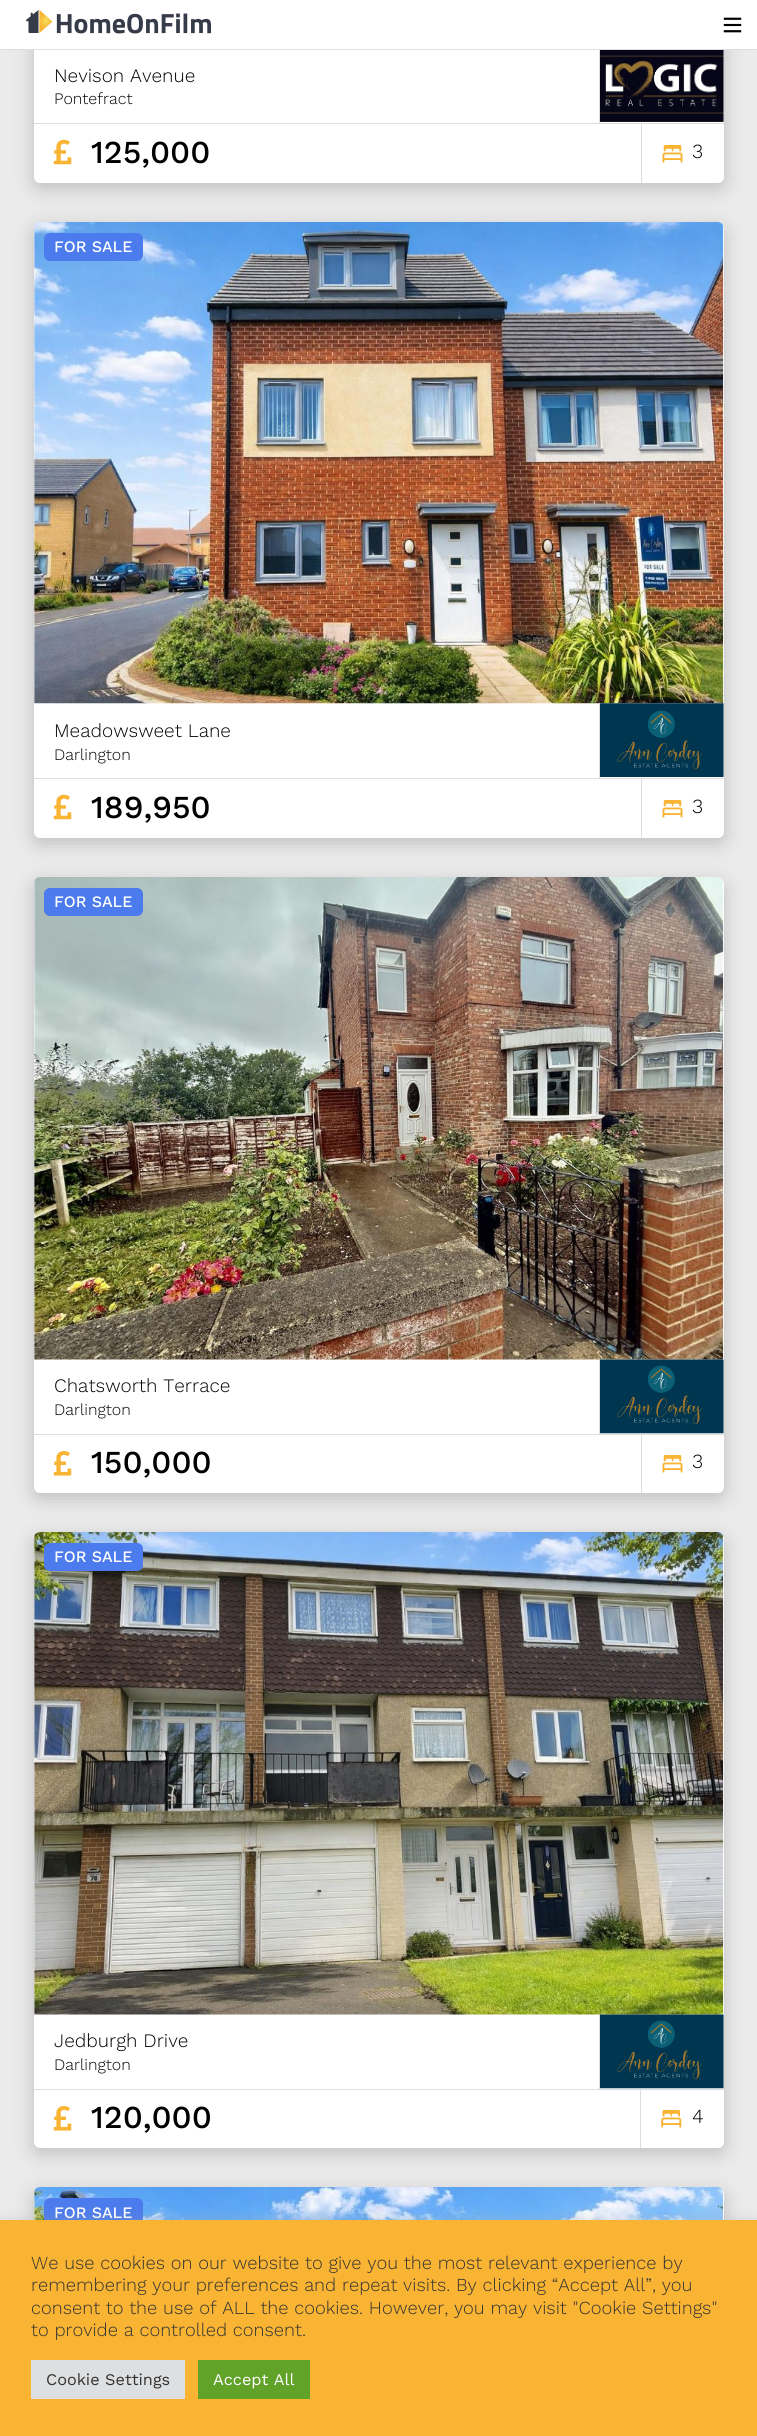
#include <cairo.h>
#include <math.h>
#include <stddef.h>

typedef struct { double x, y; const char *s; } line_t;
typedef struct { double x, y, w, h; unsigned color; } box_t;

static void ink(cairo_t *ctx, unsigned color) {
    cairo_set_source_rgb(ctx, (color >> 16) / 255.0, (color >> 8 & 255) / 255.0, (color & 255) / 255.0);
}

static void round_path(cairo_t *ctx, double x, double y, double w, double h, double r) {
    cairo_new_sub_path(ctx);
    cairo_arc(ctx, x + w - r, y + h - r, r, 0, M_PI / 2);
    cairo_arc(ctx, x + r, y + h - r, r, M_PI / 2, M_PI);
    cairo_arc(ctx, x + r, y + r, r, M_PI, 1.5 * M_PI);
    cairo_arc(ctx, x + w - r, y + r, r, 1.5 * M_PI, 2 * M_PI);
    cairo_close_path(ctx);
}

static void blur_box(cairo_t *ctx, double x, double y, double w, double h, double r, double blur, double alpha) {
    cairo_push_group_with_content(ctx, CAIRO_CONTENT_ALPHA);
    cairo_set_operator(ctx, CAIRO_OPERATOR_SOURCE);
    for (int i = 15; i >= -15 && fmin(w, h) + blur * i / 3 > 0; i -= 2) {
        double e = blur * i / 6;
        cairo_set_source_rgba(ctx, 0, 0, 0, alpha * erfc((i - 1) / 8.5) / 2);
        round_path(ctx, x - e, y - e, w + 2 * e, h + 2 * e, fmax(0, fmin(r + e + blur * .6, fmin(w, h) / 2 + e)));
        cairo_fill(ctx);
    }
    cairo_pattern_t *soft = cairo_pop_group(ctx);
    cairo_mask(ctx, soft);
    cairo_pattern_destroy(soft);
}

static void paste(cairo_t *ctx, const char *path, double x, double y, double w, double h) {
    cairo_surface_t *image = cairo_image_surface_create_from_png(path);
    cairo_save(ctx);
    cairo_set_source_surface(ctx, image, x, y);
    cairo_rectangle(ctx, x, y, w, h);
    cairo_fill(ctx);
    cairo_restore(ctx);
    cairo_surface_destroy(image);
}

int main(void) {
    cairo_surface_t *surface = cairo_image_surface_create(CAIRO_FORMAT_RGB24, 757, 2436);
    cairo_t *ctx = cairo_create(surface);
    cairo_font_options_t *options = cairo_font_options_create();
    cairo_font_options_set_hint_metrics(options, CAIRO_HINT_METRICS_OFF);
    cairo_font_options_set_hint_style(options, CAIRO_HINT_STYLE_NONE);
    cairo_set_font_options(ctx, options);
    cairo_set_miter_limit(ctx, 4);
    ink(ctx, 0xEBEBEB);
    cairo_paint(ctx);
    ink(ctx, 0x000000);
    blur_box(ctx, 34, -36, 690, 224, 6, 10, 0.2);
    ink(ctx, 0xFFFFFF);
    round_path(ctx, 34, -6, 690, 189, 6);
    cairo_fill(ctx);
    {
        static const box_t items[] = {
            {0, 0, 757, 49, 0xFFFFFF},
            {34, 123, 690, 1, 0xDCDDE1},
            {599, 49, 1, 75, 0xDCDDE1},
            {0, 49, 757, 1, 0xDCDDE1},
        };
        for (size_t i = 0; i < sizeof items / sizeof *items; i++) {
            ink(ctx, items[i].color);
            cairo_rectangle(ctx, items[i].x, items[i].y, items[i].w, items[i].h);
            cairo_fill(ctx);
        }
    }
    paste(ctx, "media/1.png", 26, 10, 186, 24);
    paste(ctx, "media/2.png", 723, 17, 19, 16);
    cairo_select_font_face(ctx, "Work Sans Light", CAIRO_FONT_SLANT_NORMAL, CAIRO_FONT_WEIGHT_NORMAL);
    cairo_set_font_size(ctx, 19);
    ink(ctx, 0x000000);
    cairo_move_to(ctx, 54, 82);
    cairo_show_text(ctx, "Nevison Avenue");
    cairo_set_font_size(ctx, 16);
    cairo_move_to(ctx, 54, 104);
    cairo_show_text(ctx, "Pontefract");
    paste(ctx, "media/3.png", 600, 50, 124, 72);
    paste(ctx, "media/4.png", 53, 139, 19, 26);
    cairo_select_font_face(ctx, "Work Sans Medium", CAIRO_FONT_SLANT_NORMAL, CAIRO_FONT_WEIGHT_NORMAL);
    cairo_set_font_size(ctx, 32);
    cairo_move_to(ctx, 91, 163);
    cairo_show_text(ctx, "125,000");
    ink(ctx, 0xDCDDE1);
    cairo_rectangle(ctx, 641, 124, 1, 59);
    cairo_fill(ctx);
    paste(ctx, "media/5.png", 662, 145, 21, 18);
    cairo_select_font_face(ctx, "Work Sans Light", CAIRO_FONT_SLANT_NORMAL, CAIRO_FONT_WEIGHT_NORMAL);
    cairo_set_font_size(ctx, 20);
    ink(ctx, 0x000000);
    cairo_move_to(ctx, 692, 158);
    cairo_show_text(ctx, "3");
    ink(ctx, 0x000000);
    blur_box(ctx, 34, 228, 690, 615, 6, 10, 0.2);
    ink(ctx, 0xFFFFFF);
    round_path(ctx, 34, 223, 690, 615, 6);
    cairo_fill(ctx);
    paste(ctx, "media/6.png", 34, 222, 690, 482);
    ink(ctx, 0x4B7BEC);
    round_path(ctx, 44, 233, 99, 28, 6);
    cairo_fill(ctx);
    cairo_select_font_face(ctx, "Work Sans Medium", CAIRO_FONT_SLANT_NORMAL, CAIRO_FONT_WEIGHT_NORMAL);
    cairo_set_font_size(ctx, 16);
    ink(ctx, 0xFFFFFF);
    cairo_move_to(ctx, 54, 252);
    cairo_show_text(ctx, "FOR SALE");
    ink(ctx, 0xDCDDE1);
    cairo_rectangle(ctx, 34, 778, 690, 1);
    cairo_fill(ctx);
    cairo_select_font_face(ctx, "Work Sans Light", CAIRO_FONT_SLANT_NORMAL, CAIRO_FONT_WEIGHT_NORMAL);
    cairo_set_font_size(ctx, 19);
    ink(ctx, 0x000000);
    cairo_move_to(ctx, 54, 737);
    cairo_show_text(ctx, "Meadowsweet Lane");
    cairo_set_font_size(ctx, 16);
    cairo_move_to(ctx, 54, 760);
    cairo_show_text(ctx, "Darlington");
    ink(ctx, 0xDCDDE1);
    cairo_rectangle(ctx, 599, 704, 1, 75);
    cairo_fill(ctx);
    paste(ctx, "media/7.png", 600, 703, 124, 74);
    paste(ctx, "media/4.png", 53, 794, 19, 26);
    cairo_select_font_face(ctx, "Work Sans Medium", CAIRO_FONT_SLANT_NORMAL, CAIRO_FONT_WEIGHT_NORMAL);
    cairo_set_font_size(ctx, 32);
    ink(ctx, 0x000000);
    cairo_move_to(ctx, 91, 818);
    cairo_show_text(ctx, "189,950");
    ink(ctx, 0xDCDDE1);
    cairo_rectangle(ctx, 641, 779, 1, 59);
    cairo_fill(ctx);
    paste(ctx, "media/5.png", 662, 800, 21, 18);
    cairo_select_font_face(ctx, "Work Sans Light", CAIRO_FONT_SLANT_NORMAL, CAIRO_FONT_WEIGHT_NORMAL);
    cairo_set_font_size(ctx, 20);
    ink(ctx, 0x000000);
    cairo_move_to(ctx, 692, 813);
    cairo_show_text(ctx, "3");
    ink(ctx, 0x000000);
    blur_box(ctx, 34, 883, 690, 615, 6, 10, 0.2);
    ink(ctx, 0xFFFFFF);
    round_path(ctx, 34, 878, 690, 615, 6);
    cairo_fill(ctx);
    paste(ctx, "media/8.png", 34, 877, 690, 483);
    ink(ctx, 0x4B7BEC);
    round_path(ctx, 44, 888, 99, 28, 6);
    cairo_fill(ctx);
    cairo_select_font_face(ctx, "Work Sans Medium", CAIRO_FONT_SLANT_NORMAL, CAIRO_FONT_WEIGHT_NORMAL);
    cairo_set_font_size(ctx, 16);
    ink(ctx, 0xFFFFFF);
    cairo_move_to(ctx, 54, 907);
    cairo_show_text(ctx, "FOR SALE");
    ink(ctx, 0xDCDDE1);
    cairo_rectangle(ctx, 34, 1434, 690, 1);
    cairo_fill(ctx);
    cairo_select_font_face(ctx, "Work Sans Light", CAIRO_FONT_SLANT_NORMAL, CAIRO_FONT_WEIGHT_NORMAL);
    cairo_set_font_size(ctx, 19);
    ink(ctx, 0x000000);
    cairo_move_to(ctx, 54, 1392);
    cairo_show_text(ctx, "Chatsworth Terrace");
    cairo_set_font_size(ctx, 16);
    cairo_move_to(ctx, 54, 1415);
    cairo_show_text(ctx, "Darlington");
    ink(ctx, 0xDCDDE1);
    cairo_rectangle(ctx, 599, 1360, 1, 75);
    cairo_fill(ctx);
    paste(ctx, "media/9.png", 600, 1359, 124, 75);
    paste(ctx, "media/10.png", 53, 1451, 19, 25);
    cairo_select_font_face(ctx, "Work Sans Medium", CAIRO_FONT_SLANT_NORMAL, CAIRO_FONT_WEIGHT_NORMAL);
    cairo_set_font_size(ctx, 32);
    ink(ctx, 0x000000);
    cairo_move_to(ctx, 91, 1473);
    cairo_show_text(ctx, "150,000");
    ink(ctx, 0xDCDDE1);
    cairo_rectangle(ctx, 641, 1435, 1, 58);
    cairo_fill(ctx);
    paste(ctx, "media/5.png", 662, 1455, 21, 18);
    cairo_select_font_face(ctx, "Work Sans Light", CAIRO_FONT_SLANT_NORMAL, CAIRO_FONT_WEIGHT_NORMAL);
    cairo_set_font_size(ctx, 20);
    ink(ctx, 0x000000);
    cairo_move_to(ctx, 692, 1468);
    cairo_show_text(ctx, "3");
    ink(ctx, 0x000000);
    blur_box(ctx, 34, 1538, 690, 615, 6, 10, 0.2);
    ink(ctx, 0xFFFFFF);
    round_path(ctx, 34, 1533, 690, 615, 6);
    cairo_fill(ctx);
    paste(ctx, "media/11.png", 34, 1532, 690, 483);
    ink(ctx, 0x4B7BEC);
    round_path(ctx, 44, 1543, 99, 28, 6);
    cairo_fill(ctx);
    cairo_select_font_face(ctx, "Work Sans Medium", CAIRO_FONT_SLANT_NORMAL, CAIRO_FONT_WEIGHT_NORMAL);
    cairo_set_font_size(ctx, 16);
    ink(ctx, 0xFFFFFF);
    cairo_move_to(ctx, 54, 1562);
    cairo_show_text(ctx, "FOR SALE");
    ink(ctx, 0xDCDDE1);
    cairo_rectangle(ctx, 34, 2089, 690, 1);
    cairo_fill(ctx);
    cairo_select_font_face(ctx, "Work Sans Light", CAIRO_FONT_SLANT_NORMAL, CAIRO_FONT_WEIGHT_NORMAL);
    cairo_set_font_size(ctx, 19);
    ink(ctx, 0x000000);
    cairo_move_to(ctx, 54, 2047);
    cairo_show_text(ctx, "Jedburgh Drive");
    cairo_set_font_size(ctx, 16);
    cairo_move_to(ctx, 54, 2070);
    cairo_show_text(ctx, "Darlington");
    ink(ctx, 0xDCDDE1);
    cairo_rectangle(ctx, 599, 2015, 1, 75);
    cairo_fill(ctx);
    paste(ctx, "media/12.png", 600, 2014, 124, 75);
    paste(ctx, "media/10.png", 53, 2106, 19, 25);
    cairo_select_font_face(ctx, "Work Sans Medium", CAIRO_FONT_SLANT_NORMAL, CAIRO_FONT_WEIGHT_NORMAL);
    cairo_set_font_size(ctx, 32);
    ink(ctx, 0x000000);
    cairo_move_to(ctx, 91, 2128);
    cairo_show_text(ctx, "120,000");
    ink(ctx, 0xDCDDE1);
    cairo_rectangle(ctx, 640, 2090, 1, 58);
    cairo_fill(ctx);
    paste(ctx, "media/13.png", 661, 2110, 21, 18);
    cairo_select_font_face(ctx, "Work Sans Light", CAIRO_FONT_SLANT_NORMAL, CAIRO_FONT_WEIGHT_NORMAL);
    cairo_set_font_size(ctx, 20);
    ink(ctx, 0x000000);
    cairo_move_to(ctx, 692, 2123);
    cairo_show_text(ctx, "4");
    ink(ctx, 0x000000);
    blur_box(ctx, 34, 2193, 690, 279, 6, 10, 0.2);
    ink(ctx, 0xFFFFFF);
    round_path(ctx, 34, 2188, 690, 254, 6);
    cairo_fill(ctx);
    paste(ctx, "media/14.png", 34, 2187, 690, 33);
    ink(ctx, 0x4B7BEC);
    round_path(ctx, 44, 2198, 99, 28, 6);
    cairo_fill(ctx);
    cairo_select_font_face(ctx, "Work Sans Medium", CAIRO_FONT_SLANT_NORMAL, CAIRO_FONT_WEIGHT_NORMAL);
    cairo_set_font_size(ctx, 16);
    ink(ctx, 0xFFFFFF);
    cairo_move_to(ctx, 54, 2218);
    cairo_show_text(ctx, "FOR SALE");
    ink(ctx, 0xACABAB);
    blur_box(ctx, 0, 2219, 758, 216, 0, 6, 0.3);
    ink(ctx, 0xF9B433);
    cairo_rectangle(ctx, 0, 2220, 757, 216);
    cairo_fill(ctx);
    cairo_select_font_face(ctx, "Work Sans Light", CAIRO_FONT_SLANT_NORMAL, CAIRO_FONT_WEIGHT_NORMAL);
    cairo_set_font_size(ctx, 18.35);
    ink(ctx, 0x333333);
    {
        static const line_t items[] = {
            {31, 2269, "We use cookies on our website to give you the most relevant experience by"},
            {31, 2291, "remembering your preferences and repeat visits. By clicking “Accept All”, you"},
            {31, 2314, "consent to the use of ALL the cookies. However, you may visit \"Cookie Settings\""},
            {31, 2336, "to provide a controlled consent."},
        };
        for (size_t i = 0; i < sizeof items / sizeof *items; i++) {
            cairo_move_to(ctx, items[i].x, items[i].y);
            cairo_show_text(ctx, items[i].s);
        }
    }
    ink(ctx, 0xDEDFE0);
    cairo_rectangle(ctx, 31, 2360, 154, 39);
    cairo_fill(ctx);
    cairo_select_font_face(ctx, "Work Sans", CAIRO_FONT_SLANT_NORMAL, CAIRO_FONT_WEIGHT_NORMAL);
    cairo_set_font_size(ctx, 16.25);
    ink(ctx, 0x333333);
    cairo_move_to(ctx, 46, 2385);
    cairo_show_text(ctx, "Cookie Settings");
    ink(ctx, 0x61A229);
    cairo_rectangle(ctx, 198, 2360, 112, 39);
    cairo_fill(ctx);
    ink(ctx, 0xFFFFFF);
    cairo_move_to(ctx, 213, 2385);
    cairo_show_text(ctx, "Accept All");
    cairo_surface_write_to_png(surface, "image.png");
    cairo_font_options_destroy(options);
    cairo_destroy(ctx);
    cairo_surface_destroy(surface);
    return 0;
}
